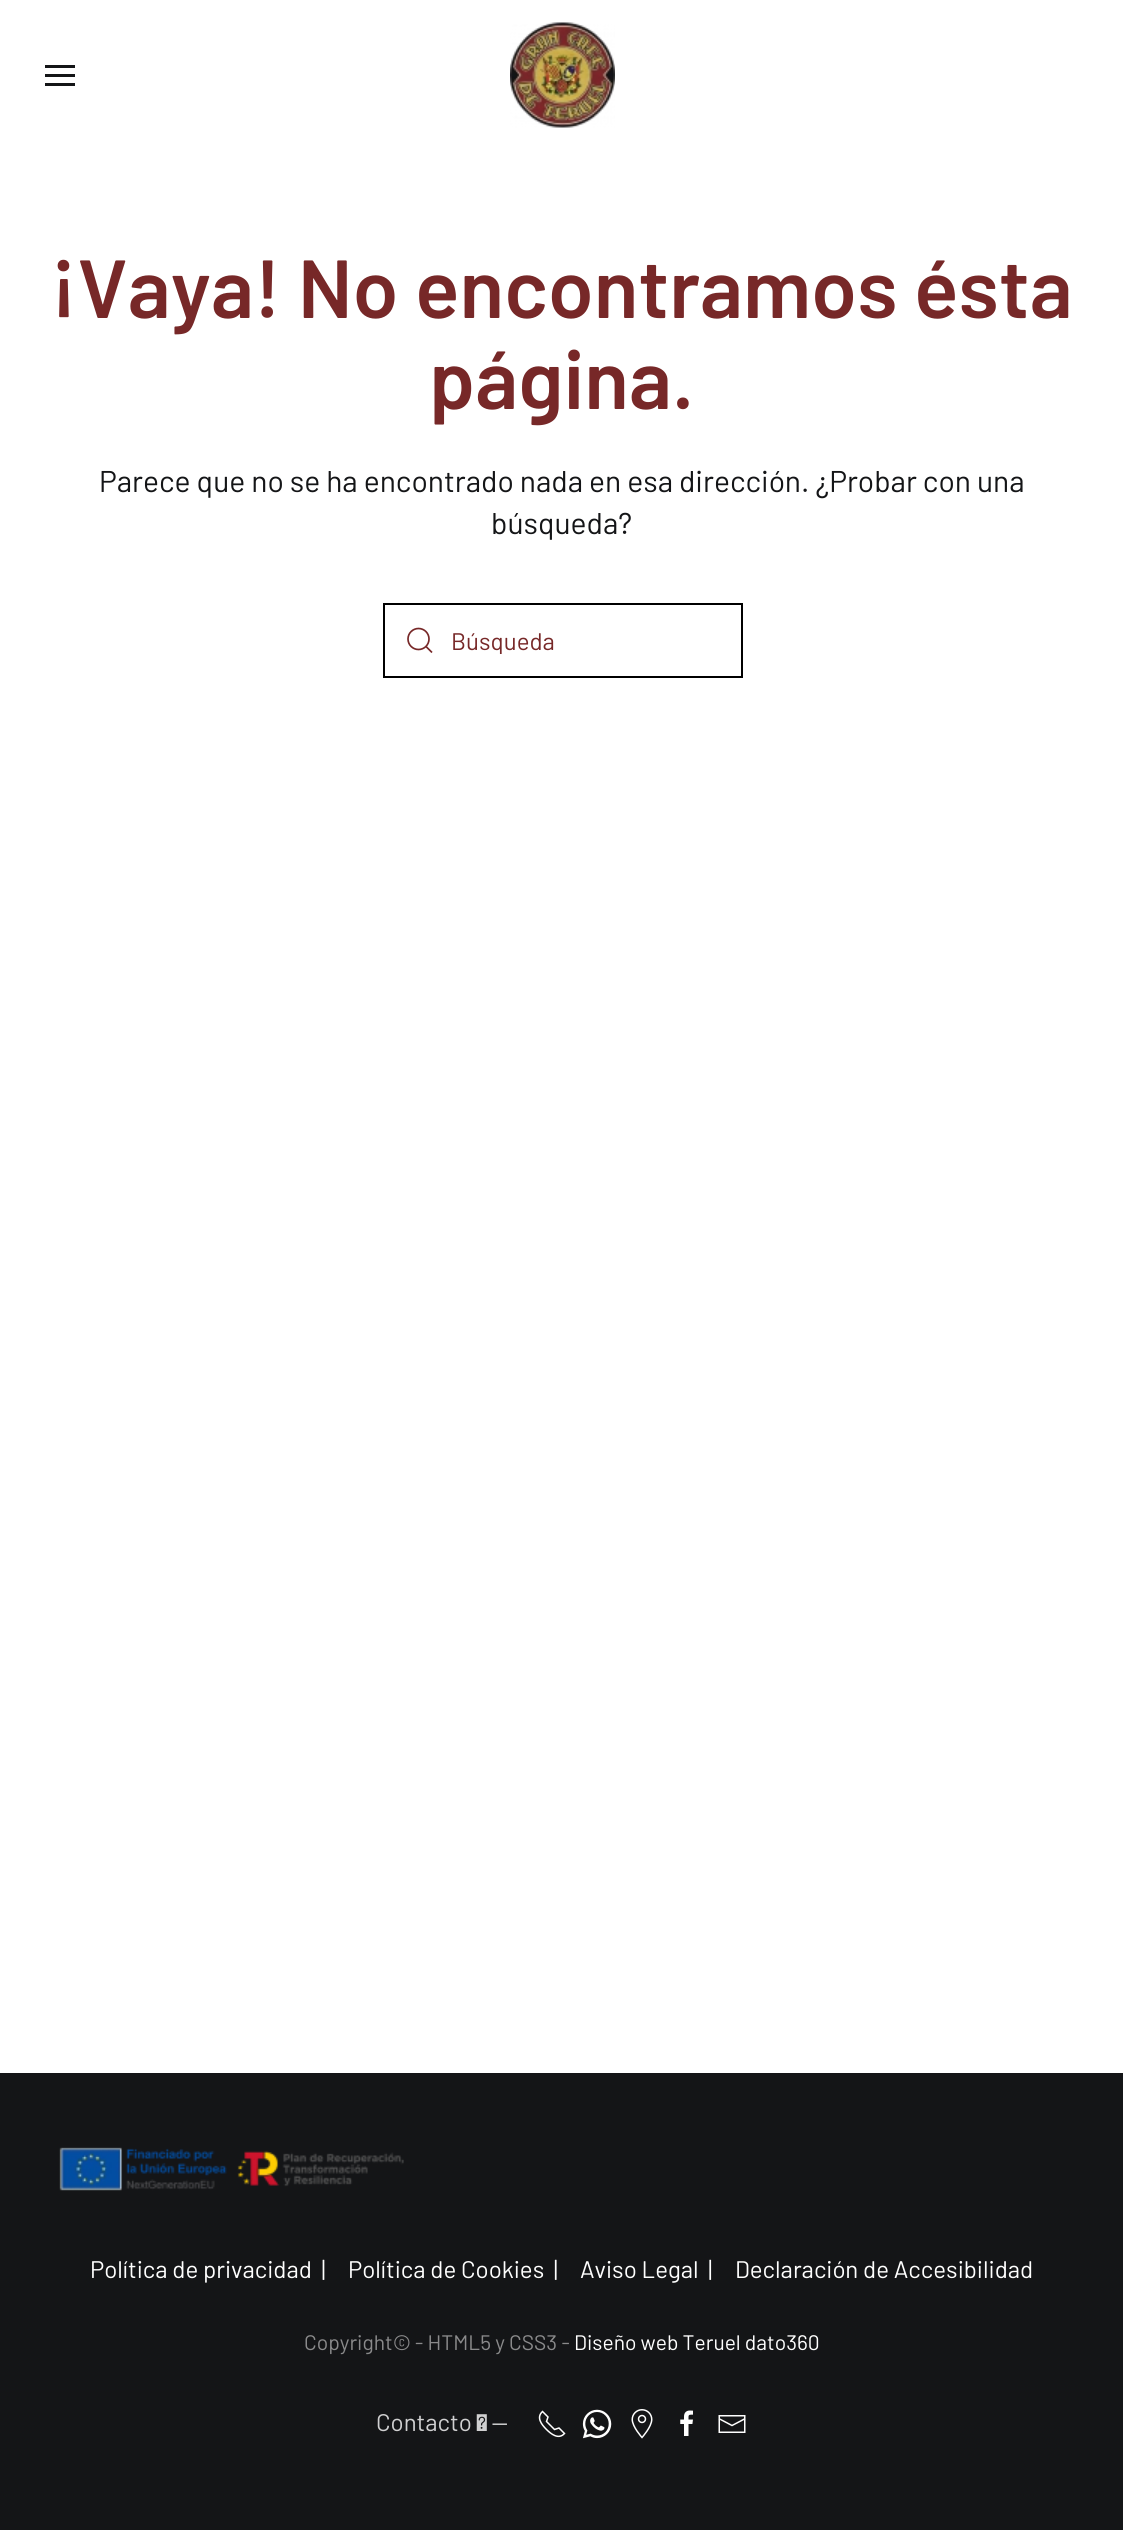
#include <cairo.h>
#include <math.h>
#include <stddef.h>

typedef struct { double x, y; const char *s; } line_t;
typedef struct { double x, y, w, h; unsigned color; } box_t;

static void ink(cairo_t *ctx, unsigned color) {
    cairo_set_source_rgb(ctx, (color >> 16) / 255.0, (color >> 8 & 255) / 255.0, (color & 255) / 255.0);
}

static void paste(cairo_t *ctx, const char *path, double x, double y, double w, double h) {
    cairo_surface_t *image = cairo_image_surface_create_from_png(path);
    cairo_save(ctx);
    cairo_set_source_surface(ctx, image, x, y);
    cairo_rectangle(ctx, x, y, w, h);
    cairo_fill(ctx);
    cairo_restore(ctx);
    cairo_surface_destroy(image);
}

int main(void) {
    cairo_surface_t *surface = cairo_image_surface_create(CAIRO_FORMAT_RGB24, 1123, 2530);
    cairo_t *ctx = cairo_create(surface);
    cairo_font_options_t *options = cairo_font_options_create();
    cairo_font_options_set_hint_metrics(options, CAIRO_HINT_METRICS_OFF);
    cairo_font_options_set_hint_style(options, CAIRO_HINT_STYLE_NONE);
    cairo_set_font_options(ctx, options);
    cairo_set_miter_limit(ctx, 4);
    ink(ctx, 0xFFFFFF);
    cairo_paint(ctx);
    {
        static const box_t items[] = {
            {45, 65, 30, 3, 0x141517},
            {45, 74, 30, 3, 0x141517},
            {45, 83, 30, 3, 0x141517},
        };
        for (size_t i = 0; i < sizeof items / sizeof *items; i++) {
            ink(ctx, items[i].color);
            cairo_rectangle(ctx, items[i].x, items[i].y, items[i].w, items[i].h);
            cairo_fill(ctx);
        }
    }
    paste(ctx, "media/1.png", 510, 22, 105, 106);
    cairo_select_font_face(ctx, "Barlow SemiBold", CAIRO_FONT_SLANT_NORMAL, CAIRO_FONT_WEIGHT_NORMAL);
    cairo_set_font_size(ctx, 82.25);
    ink(ctx, 0x772828);
    cairo_move_to(ctx, 50, 318);
    cairo_show_text(ctx, "¡Vaya! No encontramos ésta");
    cairo_move_to(ctx, 429, 409);
    cairo_show_text(ctx, "página.");
    cairo_select_font_face(ctx, "Barlow", CAIRO_FONT_SLANT_NORMAL, CAIRO_FONT_WEIGHT_NORMAL);
    cairo_set_font_size(ctx, 30);
    ink(ctx, 0x141517);
    cairo_move_to(ctx, 99, 492);
    cairo_show_text(ctx, "Parece que no se ha encontrado nada en esa dirección. ¿Probar con una");
    cairo_move_to(ctx, 491, 534);
    cairo_show_text(ctx, "búsqueda?");
    cairo_rectangle(ctx, 384, 604, 358, 73);
    ink(ctx, 0x000000);
    cairo_stroke(ctx);
    cairo_arc(ctx, 418.5, 639, 10.5, 0, 2 * M_PI);
    ink(ctx, 0x772828);
    cairo_set_line_width(ctx, 1.7);
    cairo_stroke(ctx);
    cairo_new_path(ctx);
    cairo_move_to(ctx, 426, 646.5);
    cairo_line_to(ctx, 432, 652.5);
    cairo_close_path(ctx);
    cairo_stroke(ctx);
    cairo_save(ctx);
    cairo_rectangle(ctx, 452, 626, 261, 28);
    cairo_clip(ctx);
    cairo_set_font_size(ctx, 24);
    cairo_move_to(ctx, 451, 650);
    cairo_show_text(ctx, "Búsqueda");
    cairo_restore(ctx);
    ink(ctx, 0x141517);
    cairo_rectangle(ctx, 0, 2073, 1123, 457);
    cairo_fill(ctx);
    paste(ctx, "media/2.png", 59, 2147, 345, 44);
    cairo_set_font_size(ctx, 24);
    ink(ctx, 0xFFFFFF);
    {
        static const line_t items[] = {
            {90, 2278, "Política de privacidad  |"},
            {348, 2278, "Política de Cookies  |"},
            {580, 2278, "Aviso Legal  |"},
            {735, 2278, "Declaración de Accesibilidad"},
        };
        for (size_t i = 0; i < sizeof items / sizeof *items; i++) {
            cairo_move_to(ctx, items[i].x, items[i].y);
            cairo_show_text(ctx, items[i].s);
        }
    }
    cairo_set_font_size(ctx, 21);
    ink(ctx, 0x8A8A8B);
    cairo_move_to(ctx, 304, 2350);
    cairo_show_text(ctx, "Copyright© - HTML5 y CSS3 -");
    ink(ctx, 0xFFFFFF);
    cairo_move_to(ctx, 574, 2350);
    cairo_show_text(ctx, "Diseño web Teruel dato360");
    cairo_set_font_size(ctx, 24);
    ink(ctx, 0xD0D0D1);
    cairo_move_to(ctx, 376, 2431);
    cairo_show_text(ctx, "Contacto   —");
    cairo_new_path(ctx);
    cairo_move_to(ctx, 546.5, 2429.5);
    cairo_curve_to(ctx, 551, 2434, 558.5, 2440, 564.5, 2433.5);
    cairo_line_to(ctx, 559, 2428);
    cairo_line_to(ctx, 554.5, 2429.5);
    cairo_line_to(ctx, 546.5, 2421.5);
    cairo_line_to(ctx, 548, 2417);
    cairo_line_to(ctx, 542.5, 2411.5);
    cairo_curve_to(ctx, 536, 2417.5, 541.5, 2424.5, 546.5, 2429.5);
    ink(ctx, 0xFFFFFF);
    cairo_set_line_width(ctx, 1.5);
    cairo_stroke(ctx);
    paste(ctx, "media/3.png", 582, 2409, 30, 30);
    paste(ctx, "media/4.png", 631, 2409, 22, 30);
    paste(ctx, "media/5.png", 680, 2410, 13, 26);
    paste(ctx, "media/6.png", 718, 2415, 28, 18);
    cairo_surface_write_to_png(surface, "image.png");
    cairo_font_options_destroy(options);
    cairo_destroy(ctx);
    cairo_surface_destroy(surface);
    return 0;
}
